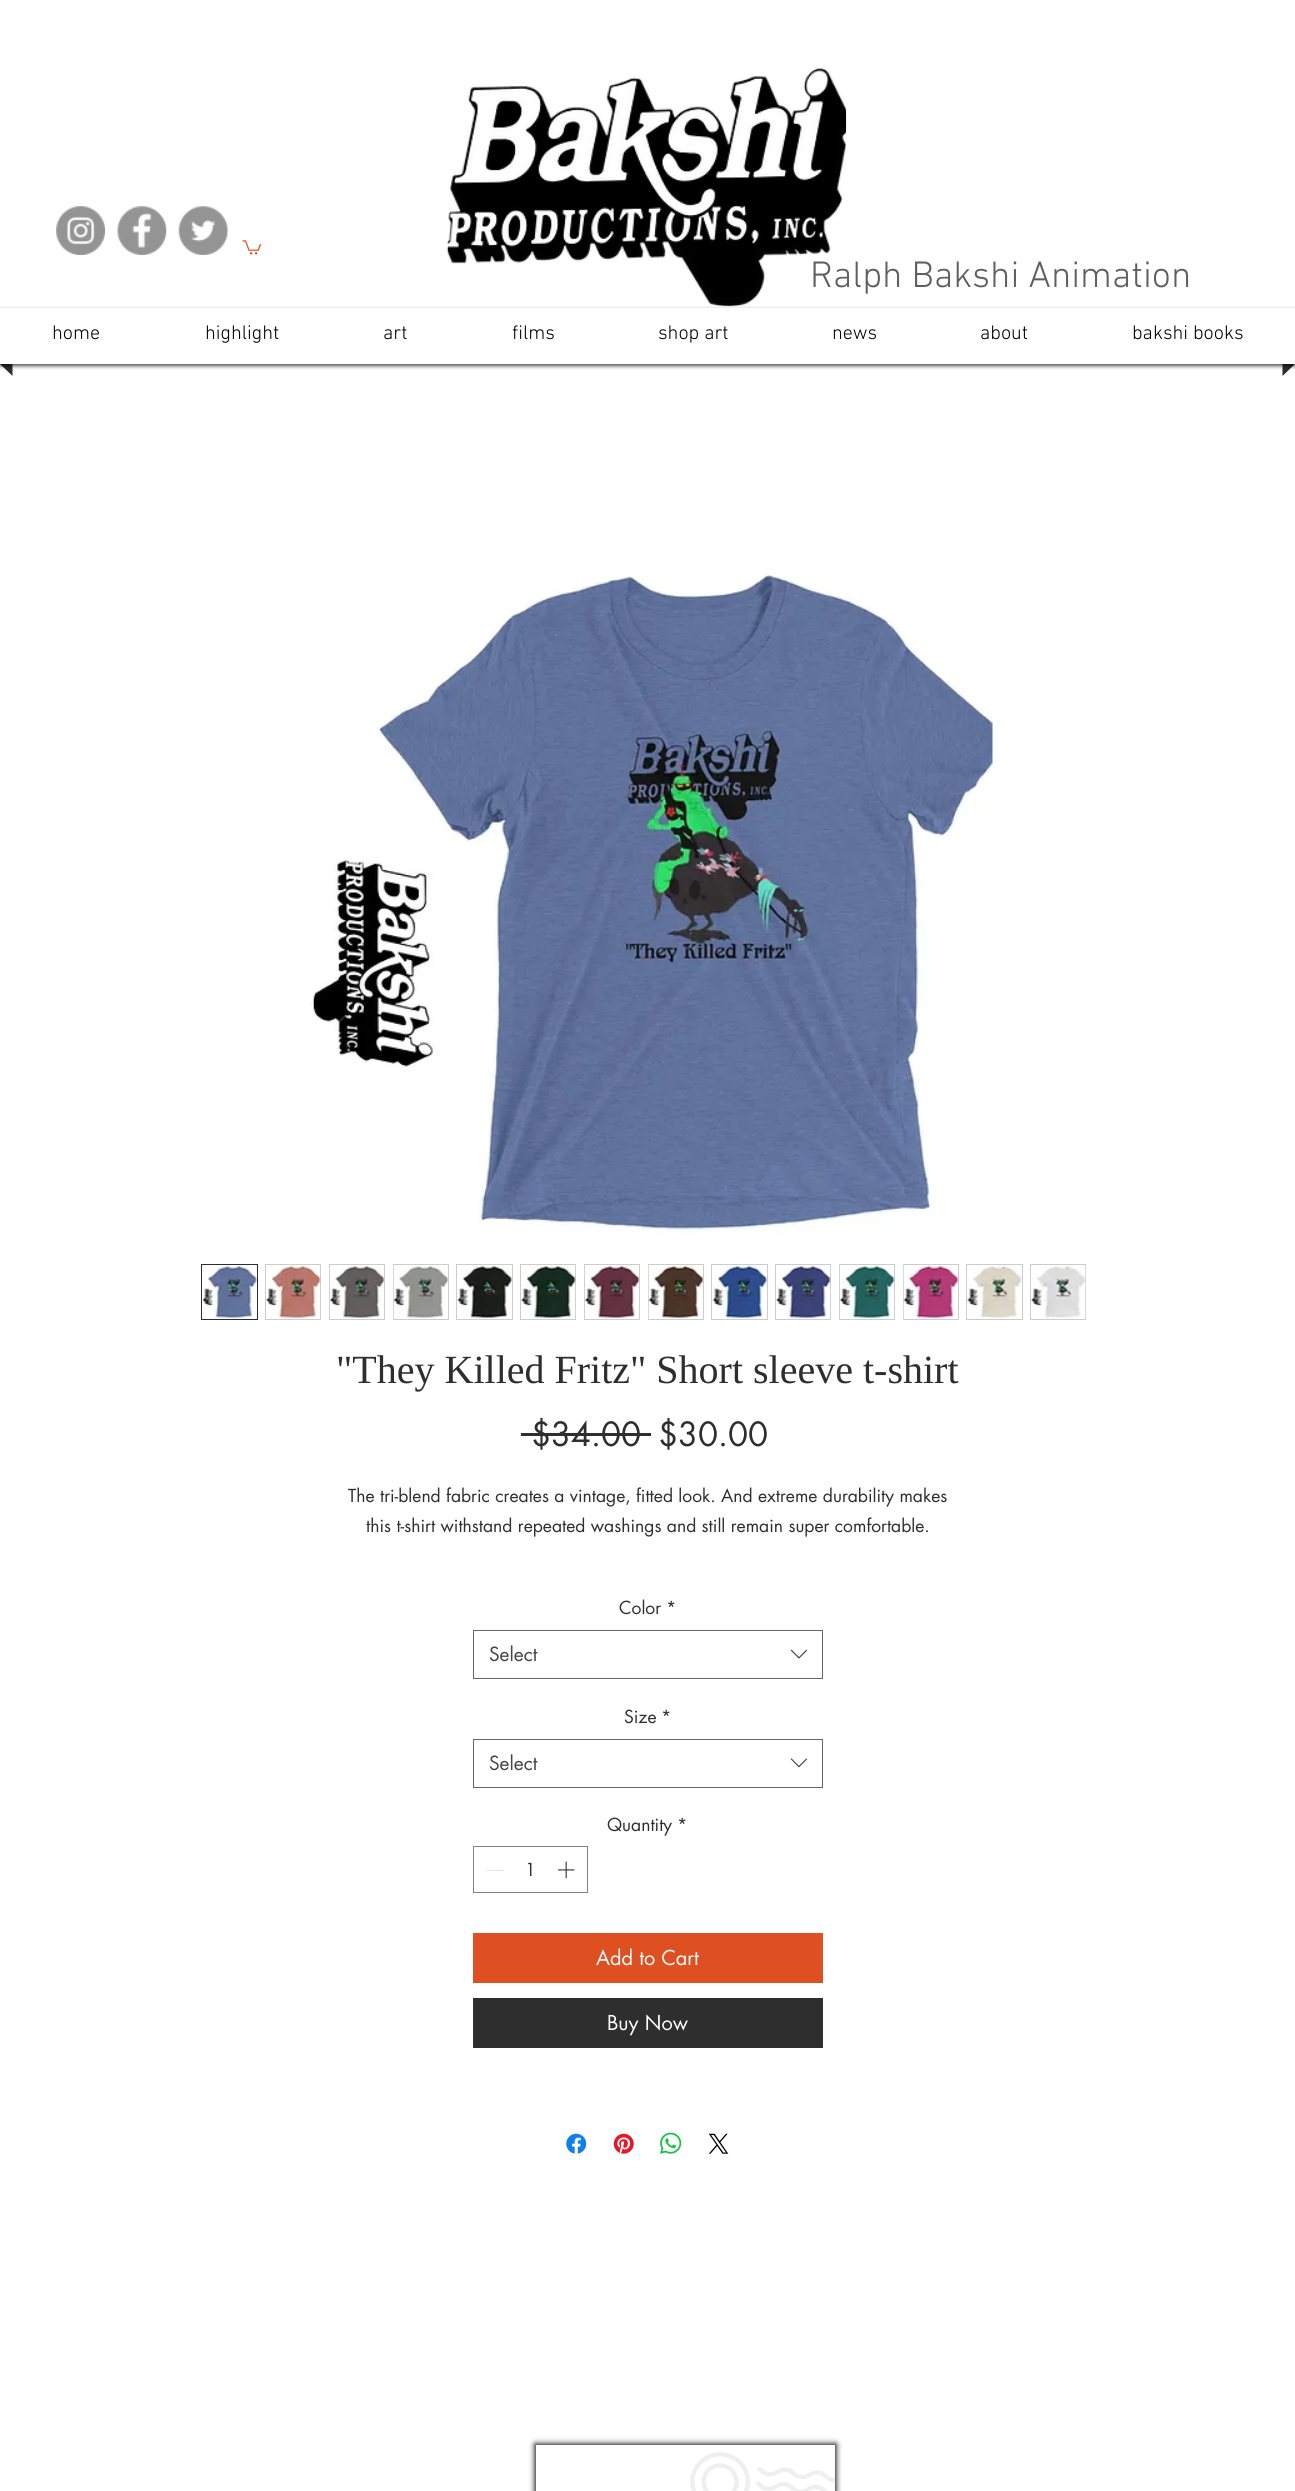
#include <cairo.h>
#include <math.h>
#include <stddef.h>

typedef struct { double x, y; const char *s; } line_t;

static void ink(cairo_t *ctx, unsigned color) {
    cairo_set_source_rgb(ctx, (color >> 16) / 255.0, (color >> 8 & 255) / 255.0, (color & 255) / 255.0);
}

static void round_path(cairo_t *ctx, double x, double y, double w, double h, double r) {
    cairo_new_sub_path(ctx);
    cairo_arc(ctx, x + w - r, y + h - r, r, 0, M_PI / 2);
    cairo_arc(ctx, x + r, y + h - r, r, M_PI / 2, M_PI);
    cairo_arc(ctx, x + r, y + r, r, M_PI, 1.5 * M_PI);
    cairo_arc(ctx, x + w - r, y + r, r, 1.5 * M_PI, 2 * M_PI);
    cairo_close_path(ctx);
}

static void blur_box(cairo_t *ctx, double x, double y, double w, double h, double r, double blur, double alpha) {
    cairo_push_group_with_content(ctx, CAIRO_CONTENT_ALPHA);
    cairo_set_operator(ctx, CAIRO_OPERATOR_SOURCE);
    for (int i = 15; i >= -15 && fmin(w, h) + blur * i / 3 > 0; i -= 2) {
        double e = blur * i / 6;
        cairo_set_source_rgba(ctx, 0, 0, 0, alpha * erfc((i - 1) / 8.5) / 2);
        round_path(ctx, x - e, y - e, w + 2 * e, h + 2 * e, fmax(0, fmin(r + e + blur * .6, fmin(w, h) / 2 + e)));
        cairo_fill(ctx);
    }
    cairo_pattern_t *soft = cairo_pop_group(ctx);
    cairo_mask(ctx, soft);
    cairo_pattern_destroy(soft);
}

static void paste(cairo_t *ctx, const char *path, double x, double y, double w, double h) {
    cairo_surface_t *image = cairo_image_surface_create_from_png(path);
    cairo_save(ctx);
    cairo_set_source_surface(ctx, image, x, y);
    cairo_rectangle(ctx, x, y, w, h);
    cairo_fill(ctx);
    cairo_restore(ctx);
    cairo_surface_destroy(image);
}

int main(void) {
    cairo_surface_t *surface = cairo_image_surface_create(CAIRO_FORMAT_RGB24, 1295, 2491);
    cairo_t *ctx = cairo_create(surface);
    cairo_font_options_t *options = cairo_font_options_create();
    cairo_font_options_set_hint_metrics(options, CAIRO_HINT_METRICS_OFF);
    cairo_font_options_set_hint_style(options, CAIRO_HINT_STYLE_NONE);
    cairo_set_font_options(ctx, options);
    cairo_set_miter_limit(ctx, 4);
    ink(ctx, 0xFFFFFF);
    cairo_paint(ctx);
    paste(ctx, "media/1.png", 56, 206, 49, 49);
    paste(ctx, "media/2.png", 117, 206, 50, 49);
    paste(ctx, "media/3.png", 178, 206, 50, 49);
    paste(ctx, "media/4.png", 242, 240, 20, 15);
    cairo_select_font_face(ctx, "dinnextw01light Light", CAIRO_FONT_SLANT_NORMAL, CAIRO_FONT_WEIGHT_NORMAL);
    cairo_set_font_size(ctx, 37.5);
    ink(ctx, 0x605E5E);
    cairo_move_to(ctx, 810, 287);
    cairo_show_text(ctx, "Ralph Bakshi Animation");
    paste(ctx, "media/5.png", 447, 68, 400, 239);
    ink(ctx, 0x2F2E2E);
    cairo_new_path(ctx);
    cairo_move_to(ctx, 0, 364);
    cairo_line_to(ctx, 12.5, 364);
    cairo_line_to(ctx, 12.5, 376);
    cairo_close_path(ctx);
    cairo_fill(ctx);
    cairo_new_path(ctx);
    cairo_move_to(ctx, 1282.5, 364);
    cairo_line_to(ctx, 1295, 364);
    cairo_line_to(ctx, 1282.5, 376);
    cairo_close_path(ctx);
    cairo_fill(ctx);
    ink(ctx, 0x000000);
    blur_box(ctx, 0, 310, 1295, 56, 0, 2, 0.7);
    ink(ctx, 0xFFFFFF);
    cairo_rectangle(ctx, 0, 308, 1295, 56);
    cairo_fill(ctx);
    cairo_set_font_size(ctx, 20);
    ink(ctx, 0x000000);
    {
        static const line_t items[] = {
            {52, 339, "home"},
            {205, 339, "highlight"},
            {383, 339, "art"},
            {512, 339, "films"},
            {658, 339, "shop art"},
            {832, 339, "news"},
            {980, 339, "about"},
            {1132, 339, "bakshi books"},
        };
        for (size_t i = 0; i < sizeof items / sizeof *items; i++) {
            cairo_move_to(ctx, items[i].x, items[i].y);
            cairo_show_text(ctx, items[i].s);
        }
    }
    paste(ctx, "media/6.png", 310, 572, 683, 665);
    cairo_rectangle(ctx, 201.5, 1264.5, 56, 55);
    ink(ctx, 0x2F2E2E);
    cairo_set_line_width(ctx, 1);
    cairo_stroke(ctx);
    paste(ctx, "media/7.png", 203, 1265, 54, 54);
    cairo_rectangle(ctx, 265.5, 1264.5, 55, 55);
    ink(ctx, 0xCCCCCC);
    cairo_stroke(ctx);
    paste(ctx, "media/8.png", 266, 1265, 55, 54);
    cairo_rectangle(ctx, 329.5, 1264.5, 55, 55);
    cairo_stroke(ctx);
    paste(ctx, "media/9.png", 329, 1265, 56, 53);
    cairo_rectangle(ctx, 393.5, 1264.5, 55, 55);
    cairo_stroke(ctx);
    paste(ctx, "media/10.png", 393, 1265, 55, 54);
    cairo_rectangle(ctx, 456.5, 1264.5, 56, 55);
    cairo_stroke(ctx);
    paste(ctx, "media/11.png", 457, 1265, 55, 54);
    cairo_rectangle(ctx, 520.5, 1264.5, 55, 55);
    cairo_stroke(ctx);
    paste(ctx, "media/12.png", 521, 1265, 55, 54);
    cairo_rectangle(ctx, 584.5, 1264.5, 55, 55);
    cairo_stroke(ctx);
    paste(ctx, "media/13.png", 584, 1265, 56, 54);
    cairo_rectangle(ctx, 648.5, 1264.5, 55, 55);
    cairo_stroke(ctx);
    paste(ctx, "media/14.png", 648, 1265, 55, 54);
    cairo_rectangle(ctx, 711.5, 1264.5, 56, 55);
    cairo_stroke(ctx);
    paste(ctx, "media/15.png", 712, 1265, 55, 54);
    cairo_rectangle(ctx, 775.5, 1264.5, 55, 55);
    cairo_stroke(ctx);
    paste(ctx, "media/16.png", 776, 1265, 55, 54);
    cairo_rectangle(ctx, 839.5, 1264.5, 55, 55);
    cairo_stroke(ctx);
    paste(ctx, "media/17.png", 839, 1265, 56, 54);
    cairo_rectangle(ctx, 903.5, 1264.5, 55, 55);
    cairo_stroke(ctx);
    paste(ctx, "media/18.png", 903, 1265, 55, 54);
    cairo_rectangle(ctx, 966.5, 1264.5, 56, 55);
    cairo_stroke(ctx);
    paste(ctx, "media/19.png", 967, 1265, 55, 54);
    cairo_rectangle(ctx, 1030.5, 1264.5, 55, 55);
    cairo_stroke(ctx);
    paste(ctx, "media/20.png", 1031, 1265, 55, 54);
    cairo_select_font_face(ctx, "Liberation Serif", CAIRO_FONT_SLANT_NORMAL, CAIRO_FONT_WEIGHT_NORMAL);
    cairo_set_font_size(ctx, 40);
    ink(ctx, 0x2F2E2E);
    cairo_move_to(ctx, 336, 1383);
    cairo_show_text(ctx, "\"They Killed Fritz\" Short sleeve t-shirt");
    cairo_select_font_face(ctx, "futura", CAIRO_FONT_SLANT_NORMAL, CAIRO_FONT_WEIGHT_NORMAL);
    cairo_set_font_size(ctx, 32.5);
    cairo_move_to(ctx, 531, 1446);
    cairo_show_text(ctx, "$34.00");
    cairo_rectangle(ctx, 521, 1433, 130, 3);
    cairo_fill(ctx);
    cairo_move_to(ctx, 658, 1446);
    cairo_show_text(ctx, "$30.00");
    cairo_set_font_size(ctx, 17.5);
    {
        static const line_t items[] = {
            {348, 1502, "The tri-blend fabric creates a vintage, fitted look. And extreme durability makes"},
            {366, 1532, "this t-shirt withstand repeated washings and still remain super comfortable."},
            {619, 1614, "Color"},
            {666, 1614, "*"},
        };
        for (size_t i = 0; i < sizeof items / sizeof *items; i++) {
            cairo_move_to(ctx, items[i].x, items[i].y);
            cairo_show_text(ctx, items[i].s);
        }
    }
    cairo_rectangle(ctx, 473.5, 1630.5, 349, 48);
    ink(ctx, 0x666666);
    cairo_stroke(ctx);
    cairo_set_font_size(ctx, 19);
    ink(ctx, 0x444444);
    cairo_move_to(ctx, 489, 1661);
    cairo_show_text(ctx, "Select");
    paste(ctx, "media/21.png", 790, 1649, 18, 10);
    cairo_set_font_size(ctx, 17.5);
    ink(ctx, 0x2F2E2E);
    cairo_move_to(ctx, 624, 1723);
    cairo_show_text(ctx, "Size");
    cairo_move_to(ctx, 661, 1723);
    cairo_show_text(ctx, "*");
    cairo_rectangle(ctx, 473.5, 1739.5, 349, 48);
    ink(ctx, 0x666666);
    cairo_stroke(ctx);
    cairo_set_font_size(ctx, 19);
    ink(ctx, 0x444444);
    cairo_move_to(ctx, 489, 1770);
    cairo_show_text(ctx, "Select");
    paste(ctx, "media/22.png", 790, 1758, 18, 10);
    cairo_set_font_size(ctx, 17.5);
    ink(ctx, 0x2F2E2E);
    cairo_move_to(ctx, 607, 1831);
    cairo_show_text(ctx, "Quantity");
    cairo_move_to(ctx, 677, 1831);
    cairo_show_text(ctx, "*");
    cairo_rectangle(ctx, 473.5, 1846.5, 114, 46);
    ink(ctx, 0x828282);
    cairo_stroke(ctx);
    ink(ctx, 0xE3E3E3);
    cairo_rectangle(ctx, 487, 1870, 16, 1);
    cairo_fill(ctx);
    ink(ctx, 0x2F2E2E);
    cairo_move_to(ctx, 525, 1876);
    cairo_show_text(ctx, "1");
    paste(ctx, "media/23.png", 558, 1861, 17, 18);
    ink(ctx, 0xDE5021);
    cairo_rectangle(ctx, 473, 1933, 350, 50);
    cairo_fill(ctx);
    cairo_set_font_size(ctx, 20);
    ink(ctx, 0xFFFFFF);
    cairo_move_to(ctx, 596, 1965);
    cairo_show_text(ctx, "Add to Cart");
    ink(ctx, 0x2F2E2E);
    cairo_rectangle(ctx, 473, 1998, 350, 50);
    cairo_fill(ctx);
    ink(ctx, 0xFFFFFF);
    cairo_move_to(ctx, 607, 2030);
    cairo_show_text(ctx, "Buy Now");
    paste(ctx, "media/24.png", 566, 2133, 21, 21);
    paste(ctx, "media/25.png", 613, 2133, 21, 21);
    paste(ctx, "media/26.png", 660, 2132, 22, 22);
    paste(ctx, "media/27.png", 708, 2133, 21, 21);
    ink(ctx, 0x000000);
    blur_box(ctx, 535, 2444, 301, 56, 0, 3, 1);
    ink(ctx, 0xFFFFFF);
    cairo_rectangle(ctx, 536, 2445, 299, 46);
    cairo_fill(ctx);
    paste(ctx, "media/28.png", 690, 2452, 146, 39);
    cairo_surface_write_to_png(surface, "image.png");
    cairo_font_options_destroy(options);
    cairo_destroy(ctx);
    cairo_surface_destroy(surface);
    return 0;
}
